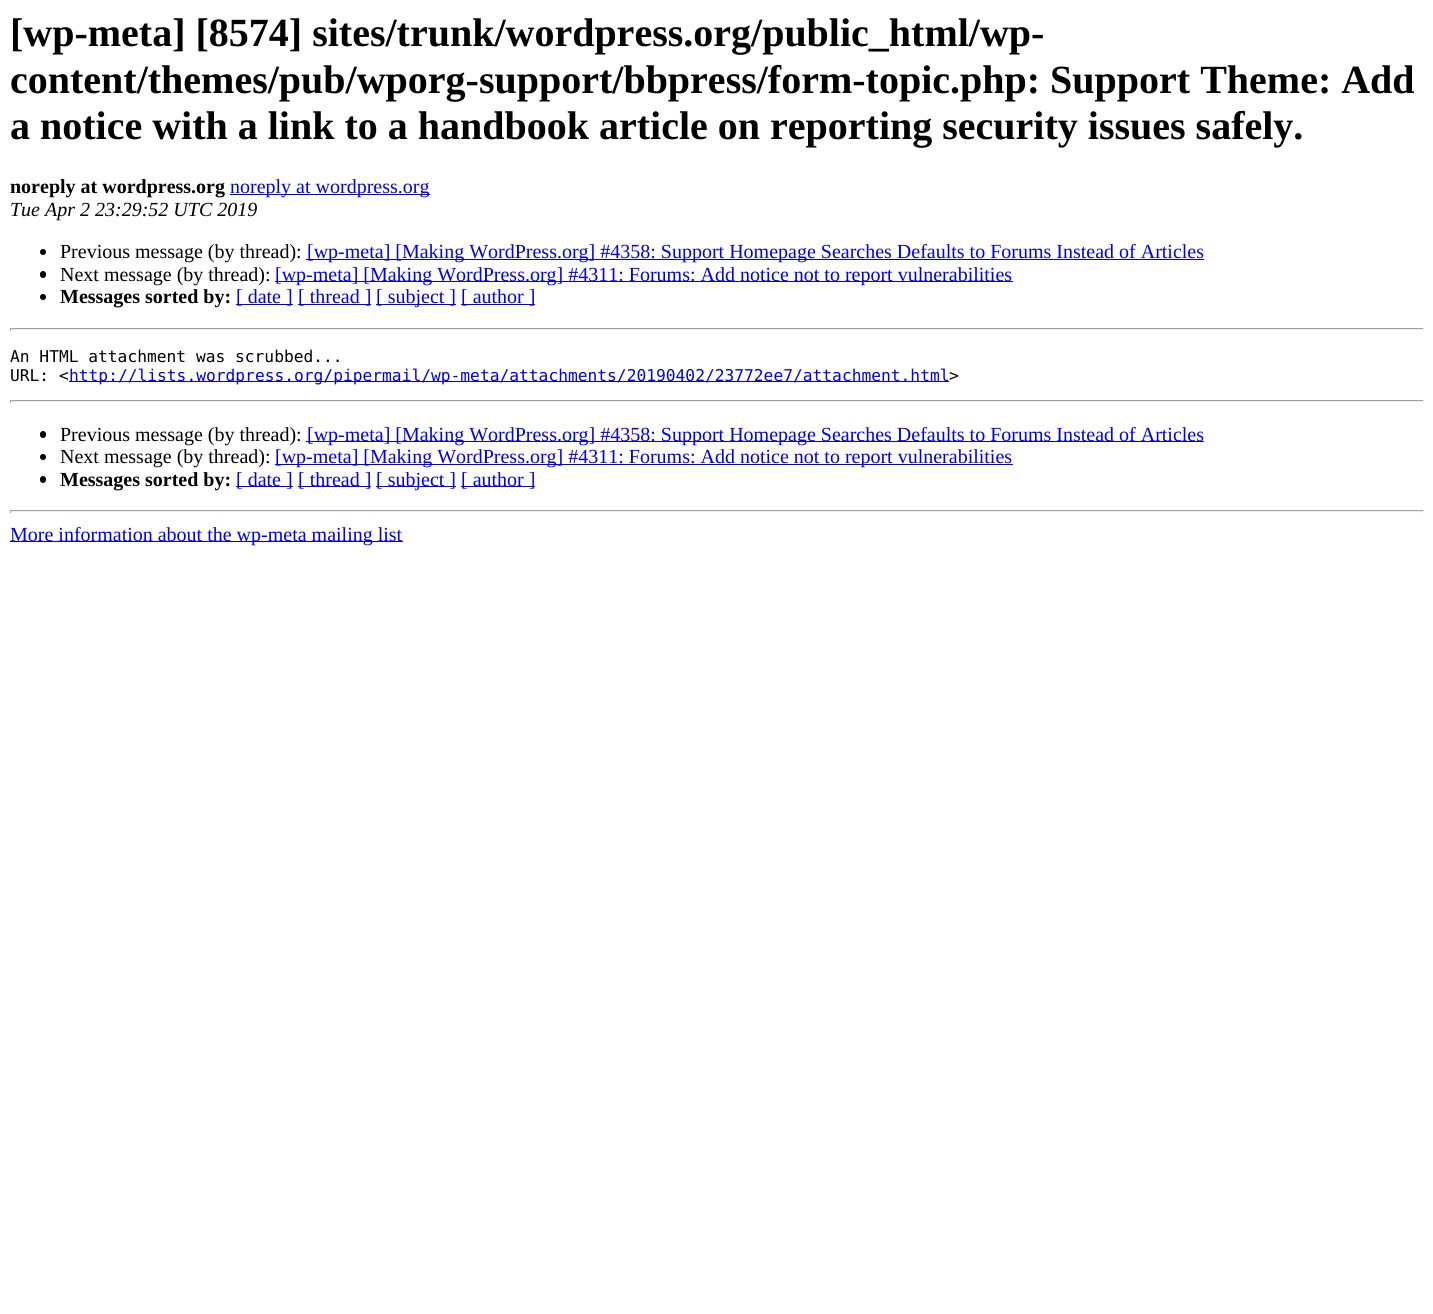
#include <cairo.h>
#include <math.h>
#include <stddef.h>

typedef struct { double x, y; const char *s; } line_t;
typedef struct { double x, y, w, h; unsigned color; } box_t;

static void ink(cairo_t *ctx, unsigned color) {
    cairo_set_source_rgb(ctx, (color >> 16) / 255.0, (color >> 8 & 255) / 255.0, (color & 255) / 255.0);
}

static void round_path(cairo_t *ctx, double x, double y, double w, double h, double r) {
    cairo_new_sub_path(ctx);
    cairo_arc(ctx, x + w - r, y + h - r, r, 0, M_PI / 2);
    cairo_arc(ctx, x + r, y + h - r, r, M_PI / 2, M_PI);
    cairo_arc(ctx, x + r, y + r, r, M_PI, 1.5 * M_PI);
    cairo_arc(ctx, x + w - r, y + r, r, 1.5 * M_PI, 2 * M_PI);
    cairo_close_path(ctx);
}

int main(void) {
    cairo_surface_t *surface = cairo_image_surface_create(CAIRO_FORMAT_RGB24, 1433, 1314);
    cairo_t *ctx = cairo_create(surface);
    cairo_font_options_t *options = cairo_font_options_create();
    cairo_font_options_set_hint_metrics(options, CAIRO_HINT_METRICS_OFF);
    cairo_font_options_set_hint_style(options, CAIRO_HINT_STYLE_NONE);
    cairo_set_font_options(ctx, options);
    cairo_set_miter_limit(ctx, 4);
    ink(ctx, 0xFFFFFF);
    cairo_paint(ctx);
    cairo_select_font_face(ctx, "Liberation Serif", CAIRO_FONT_SLANT_NORMAL, CAIRO_FONT_WEIGHT_BOLD);
    cairo_set_font_size(ctx, 40);
    ink(ctx, 0x000000);
    {
        static const line_t items[] = {
            {10, 46, "[wp-meta] [8574] sites/trunk/wordpress.org/public_html/wp-"},
            {10, 93, "content/themes/pub/wporg-support/bbpress/form-topic.php: Support Theme: Add"},
            {10, 139, "a notice with a link to a handbook article on reporting security issues safely."},
        };
        for (size_t i = 0; i < sizeof items / sizeof *items; i++) {
            cairo_move_to(ctx, items[i].x, items[i].y);
            cairo_show_text(ctx, items[i].s);
        }
    }
    cairo_set_font_size(ctx, 20);
    cairo_move_to(ctx, 10, 193);
    cairo_show_text(ctx, "noreply at wordpress.org");
    ink(ctx, 0x0000EE);
    cairo_rectangle(ctx, 230, 194, 200, 1);
    cairo_fill(ctx);
    cairo_select_font_face(ctx, "Liberation Serif", CAIRO_FONT_SLANT_NORMAL, CAIRO_FONT_WEIGHT_NORMAL);
    cairo_move_to(ctx, 230, 193);
    cairo_show_text(ctx, "noreply at wordpress.org");
    cairo_select_font_face(ctx, "Liberation Serif", CAIRO_FONT_SLANT_ITALIC, CAIRO_FONT_WEIGHT_NORMAL);
    ink(ctx, 0x000000);
    cairo_move_to(ctx, 10, 216);
    cairo_show_text(ctx, "Tue Apr 2 23:29:52 UTC 2019");
    cairo_new_path(ctx);
    cairo_arc(ctx, 43, 252, 3, 0, 2 * M_PI);
    cairo_fill(ctx);
    cairo_select_font_face(ctx, "Liberation Serif", CAIRO_FONT_SLANT_NORMAL, CAIRO_FONT_WEIGHT_NORMAL);
    cairo_move_to(ctx, 60, 258);
    cairo_show_text(ctx, "Previous message (by thread):");
    ink(ctx, 0x0000EE);
    cairo_rectangle(ctx, 306, 259, 898, 1);
    cairo_fill(ctx);
    cairo_move_to(ctx, 307, 258);
    cairo_show_text(ctx, "[wp-meta] [Making WordPress.org] #4358: Support Homepage Searches Defaults to Forums Instead of Articles");
    ink(ctx, 0x000000);
    round_path(ctx, 40, 271, 6, 7, 3);
    cairo_fill(ctx);
    cairo_move_to(ctx, 60, 281);
    cairo_show_text(ctx, "Next message (by thread):");
    ink(ctx, 0x0000EE);
    cairo_rectangle(ctx, 275, 281, 738, 1);
    cairo_fill(ctx);
    cairo_move_to(ctx, 275, 281);
    cairo_show_text(ctx, "[wp-meta] [Making WordPress.org] #4311: Forums: Add notice not to report vulnerabilities");
    ink(ctx, 0x000000);
    cairo_new_path(ctx);
    cairo_arc(ctx, 43, 297, 3, 0, 2 * M_PI);
    cairo_fill(ctx);
    cairo_select_font_face(ctx, "Liberation Serif", CAIRO_FONT_SLANT_NORMAL, CAIRO_FONT_WEIGHT_BOLD);
    cairo_move_to(ctx, 60, 303);
    cairo_show_text(ctx, "Messages sorted by:");
    ink(ctx, 0x0000EE);
    cairo_rectangle(ctx, 236, 304, 57, 1);
    cairo_fill(ctx);
    cairo_select_font_face(ctx, "Liberation Serif", CAIRO_FONT_SLANT_NORMAL, CAIRO_FONT_WEIGHT_NORMAL);
    cairo_move_to(ctx, 236, 303);
    cairo_show_text(ctx, "[ date ]");
    cairo_rectangle(ctx, 298, 304, 73, 1);
    cairo_fill(ctx);
    cairo_move_to(ctx, 298, 303);
    cairo_show_text(ctx, "[ thread ]");
    cairo_rectangle(ctx, 376, 304, 80, 1);
    cairo_fill(ctx);
    cairo_move_to(ctx, 376, 303);
    cairo_show_text(ctx, "[ subject ]");
    cairo_rectangle(ctx, 461, 304, 74, 1);
    cairo_fill(ctx);
    cairo_move_to(ctx, 461, 303);
    cairo_show_text(ctx, "[ author ]");
    {
        static const box_t items[] = {
            {10, 328, 1414, 1, 0x9F9F9F},
            {1423, 328, 1, 3, 0xEEEEEE},
            {10, 329, 1414, 1, 0xEEEEEE},
            {10, 328, 1, 3, 0x9F9F9F},
        };
        for (size_t i = 0; i < sizeof items / sizeof *items; i++) {
            ink(ctx, items[i].color);
            cairo_rectangle(ctx, items[i].x, items[i].y, items[i].w, items[i].h);
            cairo_fill(ctx);
        }
    }
    cairo_select_font_face(ctx, "DejaVu Sans Mono", CAIRO_FONT_SLANT_NORMAL, CAIRO_FONT_WEIGHT_NORMAL);
    cairo_set_font_size(ctx, 16.25);
    ink(ctx, 0x000000);
    cairo_move_to(ctx, 10, 362);
    cairo_show_text(ctx, "An HTML attachment was scrubbed...");
    cairo_move_to(ctx, 10, 381);
    cairo_show_text(ctx, "URL: <");
    ink(ctx, 0x0000EE);
    cairo_rectangle(ctx, 69, 381, 880, 1);
    cairo_fill(ctx);
    cairo_move_to(ctx, 69, 381);
    cairo_show_text(ctx, "http://lists.wordpress.org/pipermail/wp-meta/attachments/20190402/23772ee7/attachment.html");
    ink(ctx, 0x000000);
    cairo_move_to(ctx, 949, 381);
    cairo_show_text(ctx, ">");
    {
        static const box_t items[] = {
            {10, 400, 1414, 1, 0x9F9F9F},
            {1423, 400, 1, 3, 0xEEEEEE},
            {10, 401, 1414, 1, 0xEEEEEE},
            {10, 400, 1, 3, 0x9F9F9F},
        };
        for (size_t i = 0; i < sizeof items / sizeof *items; i++) {
            ink(ctx, items[i].color);
            cairo_rectangle(ctx, items[i].x, items[i].y, items[i].w, items[i].h);
            cairo_fill(ctx);
        }
    }
    ink(ctx, 0x000000);
    round_path(ctx, 40, 431, 6, 7, 3);
    cairo_fill(ctx);
    cairo_select_font_face(ctx, "Liberation Serif", CAIRO_FONT_SLANT_NORMAL, CAIRO_FONT_WEIGHT_NORMAL);
    cairo_set_font_size(ctx, 20);
    cairo_move_to(ctx, 60, 441);
    cairo_show_text(ctx, "Previous message (by thread):");
    ink(ctx, 0x0000EE);
    cairo_rectangle(ctx, 306, 441, 898, 1);
    cairo_fill(ctx);
    cairo_move_to(ctx, 307, 441);
    cairo_show_text(ctx, "[wp-meta] [Making WordPress.org] #4358: Support Homepage Searches Defaults to Forums Instead of Articles");
    ink(ctx, 0x000000);
    cairo_new_path(ctx);
    cairo_arc(ctx, 43, 457, 3, 0, 2 * M_PI);
    cairo_fill(ctx);
    cairo_move_to(ctx, 60, 463);
    cairo_show_text(ctx, "Next message (by thread):");
    ink(ctx, 0x0000EE);
    cairo_rectangle(ctx, 275, 464, 738, 1);
    cairo_fill(ctx);
    cairo_move_to(ctx, 275, 463);
    cairo_show_text(ctx, "[wp-meta] [Making WordPress.org] #4311: Forums: Add notice not to report vulnerabilities");
    ink(ctx, 0x000000);
    round_path(ctx, 40, 476, 6, 7, 3);
    cairo_fill(ctx);
    cairo_select_font_face(ctx, "Liberation Serif", CAIRO_FONT_SLANT_NORMAL, CAIRO_FONT_WEIGHT_BOLD);
    cairo_move_to(ctx, 60, 486);
    cairo_show_text(ctx, "Messages sorted by:");
    ink(ctx, 0x0000EE);
    cairo_rectangle(ctx, 236, 486, 57, 1);
    cairo_fill(ctx);
    cairo_select_font_face(ctx, "Liberation Serif", CAIRO_FONT_SLANT_NORMAL, CAIRO_FONT_WEIGHT_NORMAL);
    cairo_move_to(ctx, 236, 486);
    cairo_show_text(ctx, "[ date ]");
    cairo_rectangle(ctx, 298, 486, 73, 1);
    cairo_fill(ctx);
    cairo_move_to(ctx, 298, 486);
    cairo_show_text(ctx, "[ thread ]");
    cairo_rectangle(ctx, 376, 486, 80, 1);
    cairo_fill(ctx);
    cairo_move_to(ctx, 376, 486);
    cairo_show_text(ctx, "[ subject ]");
    cairo_rectangle(ctx, 461, 486, 74, 1);
    cairo_fill(ctx);
    cairo_move_to(ctx, 461, 486);
    cairo_show_text(ctx, "[ author ]");
    {
        static const box_t items[] = {
            {10, 510, 1414, 1, 0x9F9F9F},
            {1423, 510, 1, 3, 0xEEEEEE},
            {10, 511, 1414, 1, 0xEEEEEE},
            {10, 510, 1, 3, 0x9F9F9F},
            {10, 541, 393, 1, 0x0000EE},
        };
        for (size_t i = 0; i < sizeof items / sizeof *items; i++) {
            ink(ctx, items[i].color);
            cairo_rectangle(ctx, items[i].x, items[i].y, items[i].w, items[i].h);
            cairo_fill(ctx);
        }
    }
    cairo_move_to(ctx, 10, 541);
    cairo_show_text(ctx, "More information about the wp-meta mailing list");
    cairo_surface_write_to_png(surface, "image.png");
    cairo_font_options_destroy(options);
    cairo_destroy(ctx);
    cairo_surface_destroy(surface);
    return 0;
}
